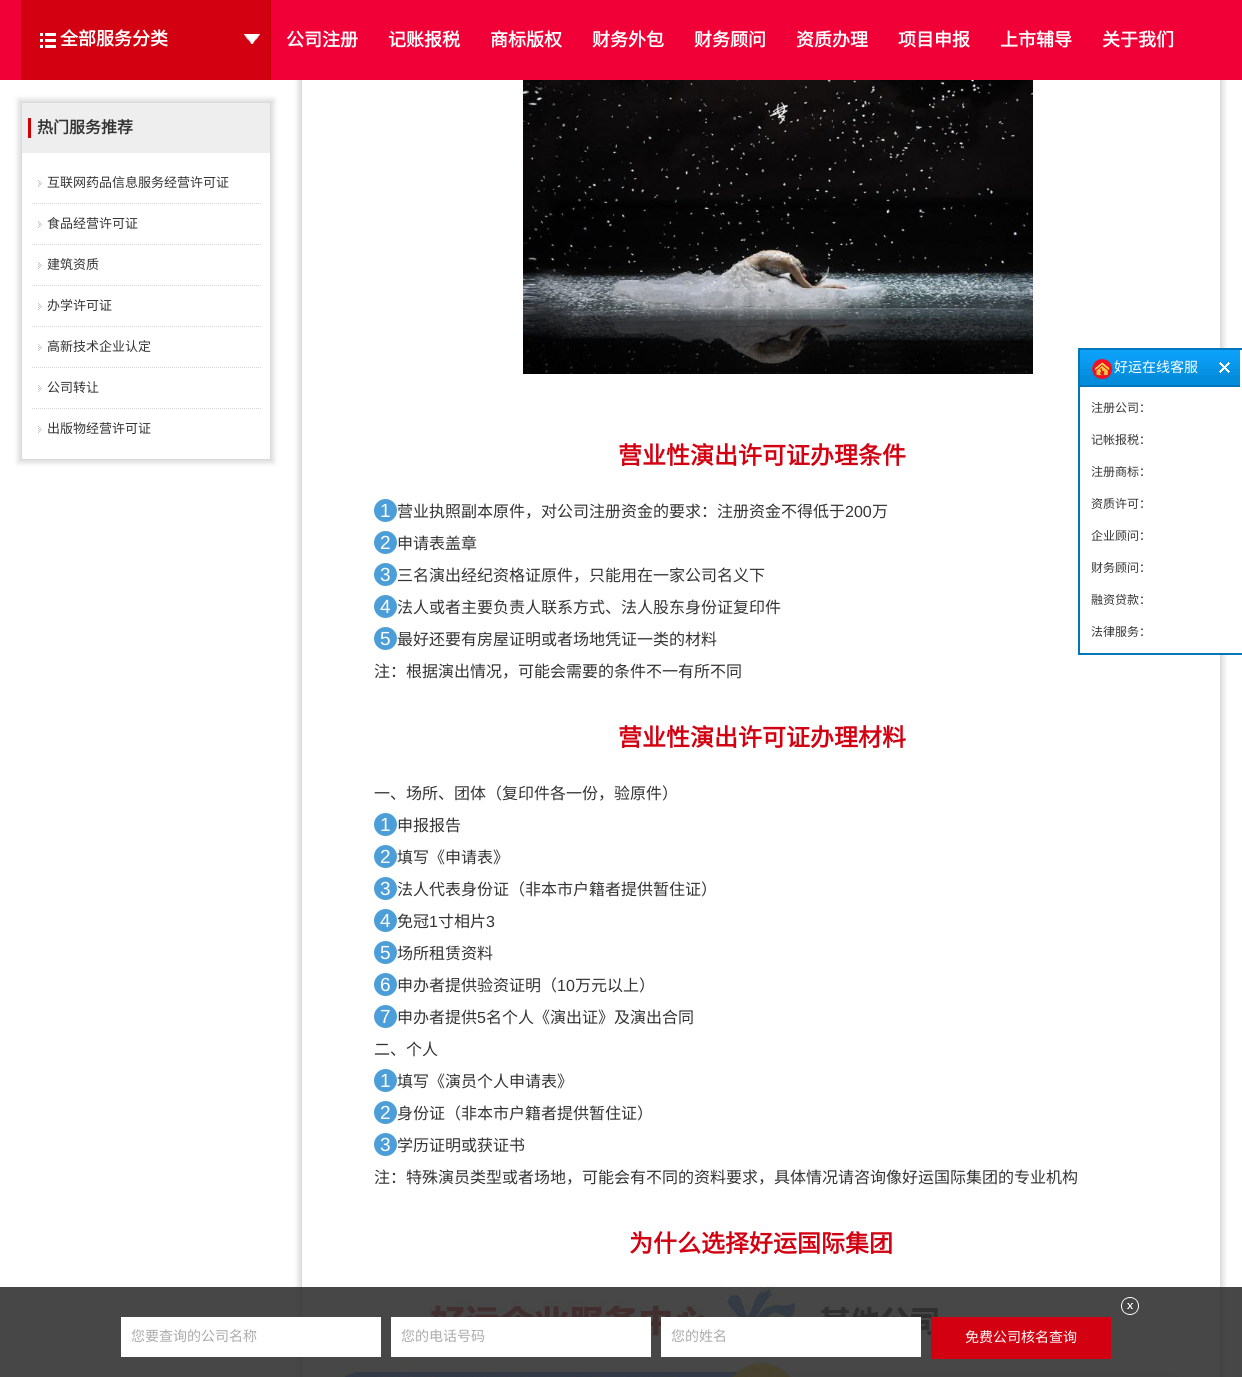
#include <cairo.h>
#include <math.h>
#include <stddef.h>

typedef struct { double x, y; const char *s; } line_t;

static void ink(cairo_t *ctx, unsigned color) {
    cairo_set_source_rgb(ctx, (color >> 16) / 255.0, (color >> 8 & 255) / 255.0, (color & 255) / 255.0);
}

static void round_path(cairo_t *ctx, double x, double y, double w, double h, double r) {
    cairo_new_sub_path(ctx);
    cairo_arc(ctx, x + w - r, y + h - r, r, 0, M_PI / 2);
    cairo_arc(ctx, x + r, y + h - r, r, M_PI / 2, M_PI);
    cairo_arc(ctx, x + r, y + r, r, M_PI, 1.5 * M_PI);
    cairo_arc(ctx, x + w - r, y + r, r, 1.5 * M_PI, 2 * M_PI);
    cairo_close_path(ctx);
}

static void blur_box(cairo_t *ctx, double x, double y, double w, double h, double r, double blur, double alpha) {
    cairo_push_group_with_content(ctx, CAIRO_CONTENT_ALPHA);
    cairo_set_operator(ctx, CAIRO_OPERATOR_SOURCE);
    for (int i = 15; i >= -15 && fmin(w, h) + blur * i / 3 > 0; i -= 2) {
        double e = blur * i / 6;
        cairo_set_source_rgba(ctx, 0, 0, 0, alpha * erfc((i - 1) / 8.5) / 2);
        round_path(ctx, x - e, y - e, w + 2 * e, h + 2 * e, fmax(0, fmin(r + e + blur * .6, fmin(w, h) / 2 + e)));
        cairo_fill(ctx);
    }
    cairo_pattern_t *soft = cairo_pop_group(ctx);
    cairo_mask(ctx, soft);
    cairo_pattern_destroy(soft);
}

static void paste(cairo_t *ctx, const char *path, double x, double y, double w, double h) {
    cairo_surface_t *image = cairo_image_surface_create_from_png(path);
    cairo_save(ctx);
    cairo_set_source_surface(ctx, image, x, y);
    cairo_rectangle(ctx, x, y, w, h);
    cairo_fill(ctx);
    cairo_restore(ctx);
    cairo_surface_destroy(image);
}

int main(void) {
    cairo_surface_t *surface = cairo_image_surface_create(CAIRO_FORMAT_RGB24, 1242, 1377);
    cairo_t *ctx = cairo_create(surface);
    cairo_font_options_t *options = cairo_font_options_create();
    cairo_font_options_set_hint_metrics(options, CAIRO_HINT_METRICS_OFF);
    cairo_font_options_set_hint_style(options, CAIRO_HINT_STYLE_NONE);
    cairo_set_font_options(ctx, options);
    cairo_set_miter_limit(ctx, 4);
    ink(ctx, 0xFFFFFF);
    cairo_paint(ctx);
    cairo_save(ctx);
    cairo_set_fill_rule(ctx, CAIRO_FILL_RULE_EVEN_ODD);
    cairo_new_path(ctx);
    cairo_move_to(ctx, 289, 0);
    cairo_line_to(ctx, 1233, 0);
    cairo_line_to(ctx, 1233, 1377);
    cairo_line_to(ctx, 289, 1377);
    cairo_close_path(ctx);
    cairo_move_to(ctx, 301, -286);
    cairo_line_to(ctx, 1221, -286);
    cairo_line_to(ctx, 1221, 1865);
    cairo_line_to(ctx, 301, 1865);
    cairo_close_path(ctx);
    cairo_clip(ctx);
    ink(ctx, 0xDDDDDD);
    blur_box(ctx, 298, -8, 926, 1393, 0, 2.5, 1);
    cairo_restore(ctx);
    cairo_rectangle(ctx, 301.5, -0.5, 919, 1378);
    ink(ctx, 0xDADADA);
    cairo_set_line_width(ctx, 1);
    cairo_stroke(ctx);
    ink(ctx, 0xF00036);
    cairo_rectangle(ctx, 0, 0, 1242, 80);
    cairo_fill(ctx);
    ink(ctx, 0xD20010);
    cairo_rectangle(ctx, 22, 0, 248, 80);
    cairo_fill(ctx);
    paste(ctx, "media/1.png", 40, 33, 16, 15);
    ink(ctx, 0xC20001);
    cairo_rectangle(ctx, 270, 0, 1, 80);
    cairo_fill(ctx);
    cairo_rectangle(ctx, 21, 0, 1, 80);
    cairo_fill(ctx);
    cairo_select_font_face(ctx, "Noto Sans CJK SC", CAIRO_FONT_SLANT_NORMAL, CAIRO_FONT_WEIGHT_BOLD);
    cairo_set_font_size(ctx, 18);
    ink(ctx, 0xFFFFFF);
    cairo_move_to(ctx, 60, 45);
    cairo_show_text(ctx, "全部服务分类");
    paste(ctx, "media/2.png", 244, 34, 16, 10);
    {
        static const line_t items[] = {
            {286, 46, "公司注册"},
            {388, 46, "记账报税"},
            {490, 46, "商标版权"},
            {592, 46, "财务外包"},
            {694, 46, "财务顾问"},
            {796, 46, "资质办理"},
            {898, 46, "项目申报"},
            {1000, 46, "上市辅导"},
            {1102, 46, "关于我们"},
        };
        for (size_t i = 0; i < sizeof items / sizeof *items; i++) {
            cairo_move_to(ctx, items[i].x, items[i].y);
            cairo_show_text(ctx, items[i].s);
        }
    }
    cairo_save(ctx);
    cairo_set_fill_rule(ctx, CAIRO_FILL_RULE_EVEN_ODD);
    cairo_new_path(ctx);
    cairo_move_to(ctx, 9, 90);
    cairo_line_to(ctx, 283, 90);
    cairo_line_to(ctx, 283, 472);
    cairo_line_to(ctx, 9, 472);
    cairo_close_path(ctx);
    cairo_move_to(ctx, 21, 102);
    cairo_line_to(ctx, 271, 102);
    cairo_line_to(ctx, 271, 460);
    cairo_line_to(ctx, 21, 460);
    cairo_close_path(ctx);
    cairo_clip(ctx);
    ink(ctx, 0xDDDDDD);
    blur_box(ctx, 18, 99, 256, 364, 0, 2.5, 1);
    cairo_restore(ctx);
    cairo_rectangle(ctx, 21.5, 102.5, 249, 357);
    ink(ctx, 0xDADADA);
    cairo_stroke(ctx);
    ink(ctx, 0xEEEEEE);
    cairo_rectangle(ctx, 22, 103, 248, 50);
    cairo_fill(ctx);
    ink(ctx, 0xD20001);
    cairo_rectangle(ctx, 28, 118, 3, 20);
    cairo_fill(ctx);
    cairo_set_font_size(ctx, 16);
    ink(ctx, 0x333333);
    cairo_move_to(ctx, 37, 133);
    cairo_show_text(ctx, "热门服务推荐");
    paste(ctx, "media/3.png", 38, 180, 4, 7);
    cairo_select_font_face(ctx, "Noto Sans CJK SC", CAIRO_FONT_SLANT_NORMAL, CAIRO_FONT_WEIGHT_NORMAL);
    cairo_set_font_size(ctx, 13);
    cairo_move_to(ctx, 47, 187);
    cairo_show_text(ctx, "互联网药品信息服务经营许可证");
    paste(ctx, "media/3.png", 38, 221, 4, 7);
    cairo_new_path(ctx);
    cairo_move_to(ctx, 32, 203.5);
    cairo_line_to(ctx, 262, 203.5);
    ink(ctx, 0xD6D6D6);
    cairo_set_dash(ctx, (double[]){1, 1}, 2, 0);
    cairo_stroke(ctx);
    ink(ctx, 0x333333);
    cairo_move_to(ctx, 47, 228);
    cairo_show_text(ctx, "食品经营许可证");
    paste(ctx, "media/3.png", 38, 262, 4, 7);
    cairo_new_path(ctx);
    cairo_move_to(ctx, 32, 244.5);
    cairo_line_to(ctx, 262, 244.5);
    ink(ctx, 0xD6D6D6);
    cairo_stroke(ctx);
    ink(ctx, 0x333333);
    cairo_move_to(ctx, 47, 269);
    cairo_show_text(ctx, "建筑资质");
    paste(ctx, "media/3.png", 38, 303, 4, 7);
    cairo_new_path(ctx);
    cairo_move_to(ctx, 32, 285.5);
    cairo_line_to(ctx, 262, 285.5);
    ink(ctx, 0xD6D6D6);
    cairo_stroke(ctx);
    ink(ctx, 0x333333);
    cairo_move_to(ctx, 47, 310);
    cairo_show_text(ctx, "办学许可证");
    paste(ctx, "media/3.png", 38, 344, 4, 7);
    cairo_new_path(ctx);
    cairo_move_to(ctx, 32, 326.5);
    cairo_line_to(ctx, 262, 326.5);
    ink(ctx, 0xD6D6D6);
    cairo_stroke(ctx);
    ink(ctx, 0x333333);
    cairo_move_to(ctx, 47, 351);
    cairo_show_text(ctx, "高新技术企业认定");
    paste(ctx, "media/3.png", 38, 385, 4, 7);
    cairo_new_path(ctx);
    cairo_move_to(ctx, 32, 367.5);
    cairo_line_to(ctx, 262, 367.5);
    ink(ctx, 0xD6D6D6);
    cairo_stroke(ctx);
    ink(ctx, 0x333333);
    cairo_move_to(ctx, 47, 392);
    cairo_show_text(ctx, "公司转让");
    paste(ctx, "media/3.png", 38, 426, 4, 7);
    cairo_new_path(ctx);
    cairo_move_to(ctx, 32, 408.5);
    cairo_line_to(ctx, 262, 408.5);
    ink(ctx, 0xD6D6D6);
    cairo_stroke(ctx);
    ink(ctx, 0x333333);
    cairo_move_to(ctx, 47, 433);
    cairo_show_text(ctx, "出版物经营许可证");
    paste(ctx, "media/4.png", 523, 80, 510, 294);
    cairo_select_font_face(ctx, "Noto Sans CJK SC", CAIRO_FONT_SLANT_NORMAL, CAIRO_FONT_WEIGHT_BOLD);
    cairo_set_font_size(ctx, 24);
    ink(ctx, 0xD20010);
    cairo_move_to(ctx, 618, 464);
    cairo_show_text(ctx, "营业性演出许可证办理条件");
    ink(ctx, 0x4C9ED9);
    cairo_new_path(ctx);
    cairo_arc(ctx, 385.5, 510.5, 11.5, 0, 2 * M_PI);
    cairo_fill(ctx);
    cairo_select_font_face(ctx, "Liberation Sans", CAIRO_FONT_SLANT_NORMAL, CAIRO_FONT_WEIGHT_NORMAL);
    cairo_set_font_size(ctx, 19);
    ink(ctx, 0xFFFFFF);
    cairo_move_to(ctx, 380, 517);
    cairo_show_text(ctx, "1");
    cairo_select_font_face(ctx, "Noto Sans CJK SC", CAIRO_FONT_SLANT_NORMAL, CAIRO_FONT_WEIGHT_NORMAL);
    cairo_set_font_size(ctx, 16);
    ink(ctx, 0x333333);
    cairo_move_to(ctx, 397, 517);
    cairo_show_text(ctx, "营业执照副本原件，对公司注册资金的要求：注册资金不得低于");
    cairo_select_font_face(ctx, "Liberation Sans", CAIRO_FONT_SLANT_NORMAL, CAIRO_FONT_WEIGHT_NORMAL);
    cairo_move_to(ctx, 845, 517);
    cairo_show_text(ctx, "200");
    cairo_select_font_face(ctx, "Noto Sans CJK SC", CAIRO_FONT_SLANT_NORMAL, CAIRO_FONT_WEIGHT_NORMAL);
    cairo_move_to(ctx, 872, 517);
    cairo_show_text(ctx, "万");
    ink(ctx, 0x4C9ED9);
    cairo_new_path(ctx);
    cairo_arc(ctx, 385.5, 542.5, 11.5, 0, 2 * M_PI);
    cairo_fill(ctx);
    cairo_select_font_face(ctx, "Liberation Sans", CAIRO_FONT_SLANT_NORMAL, CAIRO_FONT_WEIGHT_NORMAL);
    cairo_set_font_size(ctx, 19);
    ink(ctx, 0xFFFFFF);
    cairo_move_to(ctx, 380, 549);
    cairo_show_text(ctx, "2");
    cairo_select_font_face(ctx, "Noto Sans CJK SC", CAIRO_FONT_SLANT_NORMAL, CAIRO_FONT_WEIGHT_NORMAL);
    cairo_set_font_size(ctx, 16);
    ink(ctx, 0x333333);
    cairo_move_to(ctx, 397, 549);
    cairo_show_text(ctx, "申请表盖章");
    ink(ctx, 0x4C9ED9);
    cairo_new_path(ctx);
    cairo_arc(ctx, 385.5, 574.5, 11.5, 0, 2 * M_PI);
    cairo_fill(ctx);
    cairo_select_font_face(ctx, "Liberation Sans", CAIRO_FONT_SLANT_NORMAL, CAIRO_FONT_WEIGHT_NORMAL);
    cairo_set_font_size(ctx, 19);
    ink(ctx, 0xFFFFFF);
    cairo_move_to(ctx, 380, 581);
    cairo_show_text(ctx, "3");
    cairo_select_font_face(ctx, "Noto Sans CJK SC", CAIRO_FONT_SLANT_NORMAL, CAIRO_FONT_WEIGHT_NORMAL);
    cairo_set_font_size(ctx, 16);
    ink(ctx, 0x333333);
    cairo_move_to(ctx, 397, 581);
    cairo_show_text(ctx, "三名演出经纪资格证原件，只能用在一家公司名义下");
    ink(ctx, 0x4C9ED9);
    cairo_new_path(ctx);
    cairo_arc(ctx, 385.5, 606.5, 11.5, 0, 2 * M_PI);
    cairo_fill(ctx);
    cairo_select_font_face(ctx, "Liberation Sans", CAIRO_FONT_SLANT_NORMAL, CAIRO_FONT_WEIGHT_NORMAL);
    cairo_set_font_size(ctx, 19);
    ink(ctx, 0xFFFFFF);
    cairo_move_to(ctx, 380, 613);
    cairo_show_text(ctx, "4");
    cairo_select_font_face(ctx, "Noto Sans CJK SC", CAIRO_FONT_SLANT_NORMAL, CAIRO_FONT_WEIGHT_NORMAL);
    cairo_set_font_size(ctx, 16);
    ink(ctx, 0x333333);
    cairo_move_to(ctx, 397, 613);
    cairo_show_text(ctx, "法人或者主要负责人联系方式、法人股东身份证复印件");
    ink(ctx, 0x4C9ED9);
    cairo_new_path(ctx);
    cairo_arc(ctx, 385.5, 638.5, 11.5, 0, 2 * M_PI);
    cairo_fill(ctx);
    cairo_select_font_face(ctx, "Liberation Sans", CAIRO_FONT_SLANT_NORMAL, CAIRO_FONT_WEIGHT_NORMAL);
    cairo_set_font_size(ctx, 19);
    ink(ctx, 0xFFFFFF);
    cairo_move_to(ctx, 380, 645);
    cairo_show_text(ctx, "5");
    cairo_select_font_face(ctx, "Noto Sans CJK SC", CAIRO_FONT_SLANT_NORMAL, CAIRO_FONT_WEIGHT_NORMAL);
    cairo_set_font_size(ctx, 16);
    ink(ctx, 0x333333);
    cairo_move_to(ctx, 397, 645);
    cairo_show_text(ctx, "最好还要有房屋证明或者场地凭证一类的材料");
    cairo_move_to(ctx, 374, 677);
    cairo_show_text(ctx, "注：根据演出情况，可能会需要的条件不一有所不同");
    cairo_select_font_face(ctx, "Noto Sans CJK SC", CAIRO_FONT_SLANT_NORMAL, CAIRO_FONT_WEIGHT_BOLD);
    cairo_set_font_size(ctx, 24);
    ink(ctx, 0xD20010);
    cairo_move_to(ctx, 618, 746);
    cairo_show_text(ctx, "营业性演出许可证办理材料");
    cairo_select_font_face(ctx, "Noto Sans CJK SC", CAIRO_FONT_SLANT_NORMAL, CAIRO_FONT_WEIGHT_NORMAL);
    cairo_set_font_size(ctx, 16);
    ink(ctx, 0x333333);
    cairo_move_to(ctx, 374, 799);
    cairo_show_text(ctx, "一、场所、团体（复印件各一份，验原件）");
    ink(ctx, 0x4C9ED9);
    cairo_new_path(ctx);
    cairo_arc(ctx, 385.5, 824.5, 11.5, 0, 2 * M_PI);
    cairo_fill(ctx);
    cairo_select_font_face(ctx, "Liberation Sans", CAIRO_FONT_SLANT_NORMAL, CAIRO_FONT_WEIGHT_NORMAL);
    cairo_set_font_size(ctx, 19);
    ink(ctx, 0xFFFFFF);
    cairo_move_to(ctx, 380, 831);
    cairo_show_text(ctx, "1");
    cairo_select_font_face(ctx, "Noto Sans CJK SC", CAIRO_FONT_SLANT_NORMAL, CAIRO_FONT_WEIGHT_NORMAL);
    cairo_set_font_size(ctx, 16);
    ink(ctx, 0x333333);
    cairo_move_to(ctx, 397, 831);
    cairo_show_text(ctx, "申报报告");
    ink(ctx, 0x4C9ED9);
    cairo_new_path(ctx);
    cairo_arc(ctx, 385.5, 856.5, 11.5, 0, 2 * M_PI);
    cairo_fill(ctx);
    cairo_select_font_face(ctx, "Liberation Sans", CAIRO_FONT_SLANT_NORMAL, CAIRO_FONT_WEIGHT_NORMAL);
    cairo_set_font_size(ctx, 19);
    ink(ctx, 0xFFFFFF);
    cairo_move_to(ctx, 380, 863);
    cairo_show_text(ctx, "2");
    cairo_select_font_face(ctx, "Noto Sans CJK SC", CAIRO_FONT_SLANT_NORMAL, CAIRO_FONT_WEIGHT_NORMAL);
    cairo_set_font_size(ctx, 16);
    ink(ctx, 0x333333);
    cairo_move_to(ctx, 397, 863);
    cairo_show_text(ctx, "填写《申请表》");
    ink(ctx, 0x4C9ED9);
    cairo_new_path(ctx);
    cairo_arc(ctx, 385.5, 888.5, 11.5, 0, 2 * M_PI);
    cairo_fill(ctx);
    cairo_select_font_face(ctx, "Liberation Sans", CAIRO_FONT_SLANT_NORMAL, CAIRO_FONT_WEIGHT_NORMAL);
    cairo_set_font_size(ctx, 19);
    ink(ctx, 0xFFFFFF);
    cairo_move_to(ctx, 380, 895);
    cairo_show_text(ctx, "3");
    cairo_select_font_face(ctx, "Noto Sans CJK SC", CAIRO_FONT_SLANT_NORMAL, CAIRO_FONT_WEIGHT_NORMAL);
    cairo_set_font_size(ctx, 16);
    ink(ctx, 0x333333);
    cairo_move_to(ctx, 397, 895);
    cairo_show_text(ctx, "法人代表身份证（非本市户籍者提供暂住证）");
    ink(ctx, 0x4C9ED9);
    cairo_new_path(ctx);
    cairo_arc(ctx, 385.5, 920.5, 11.5, 0, 2 * M_PI);
    cairo_fill(ctx);
    cairo_select_font_face(ctx, "Liberation Sans", CAIRO_FONT_SLANT_NORMAL, CAIRO_FONT_WEIGHT_NORMAL);
    cairo_set_font_size(ctx, 19);
    ink(ctx, 0xFFFFFF);
    cairo_move_to(ctx, 380, 927);
    cairo_show_text(ctx, "4");
    cairo_select_font_face(ctx, "Noto Sans CJK SC", CAIRO_FONT_SLANT_NORMAL, CAIRO_FONT_WEIGHT_NORMAL);
    cairo_set_font_size(ctx, 16);
    ink(ctx, 0x333333);
    cairo_move_to(ctx, 397, 927);
    cairo_show_text(ctx, "免冠");
    cairo_select_font_face(ctx, "Liberation Sans", CAIRO_FONT_SLANT_NORMAL, CAIRO_FONT_WEIGHT_NORMAL);
    cairo_move_to(ctx, 429, 927);
    cairo_show_text(ctx, "1");
    cairo_select_font_face(ctx, "Noto Sans CJK SC", CAIRO_FONT_SLANT_NORMAL, CAIRO_FONT_WEIGHT_NORMAL);
    cairo_move_to(ctx, 438, 927);
    cairo_show_text(ctx, "寸相片");
    cairo_select_font_face(ctx, "Liberation Sans", CAIRO_FONT_SLANT_NORMAL, CAIRO_FONT_WEIGHT_NORMAL);
    cairo_move_to(ctx, 486, 927);
    cairo_show_text(ctx, "3");
    ink(ctx, 0x4C9ED9);
    cairo_new_path(ctx);
    cairo_arc(ctx, 385.5, 952.5, 11.5, 0, 2 * M_PI);
    cairo_fill(ctx);
    cairo_set_font_size(ctx, 19);
    ink(ctx, 0xFFFFFF);
    cairo_move_to(ctx, 380, 959);
    cairo_show_text(ctx, "5");
    cairo_select_font_face(ctx, "Noto Sans CJK SC", CAIRO_FONT_SLANT_NORMAL, CAIRO_FONT_WEIGHT_NORMAL);
    cairo_set_font_size(ctx, 16);
    ink(ctx, 0x333333);
    cairo_move_to(ctx, 397, 959);
    cairo_show_text(ctx, "场所租赁资料");
    ink(ctx, 0x4C9ED9);
    cairo_new_path(ctx);
    cairo_arc(ctx, 385.5, 984.5, 11.5, 0, 2 * M_PI);
    cairo_fill(ctx);
    cairo_select_font_face(ctx, "Liberation Sans", CAIRO_FONT_SLANT_NORMAL, CAIRO_FONT_WEIGHT_NORMAL);
    cairo_set_font_size(ctx, 19);
    ink(ctx, 0xFFFFFF);
    cairo_move_to(ctx, 380, 991);
    cairo_show_text(ctx, "6");
    cairo_select_font_face(ctx, "Noto Sans CJK SC", CAIRO_FONT_SLANT_NORMAL, CAIRO_FONT_WEIGHT_NORMAL);
    cairo_set_font_size(ctx, 16);
    ink(ctx, 0x333333);
    cairo_move_to(ctx, 397, 991);
    cairo_show_text(ctx, "申办者提供验资证明（");
    cairo_select_font_face(ctx, "Liberation Sans", CAIRO_FONT_SLANT_NORMAL, CAIRO_FONT_WEIGHT_NORMAL);
    cairo_move_to(ctx, 557, 991);
    cairo_show_text(ctx, "10");
    cairo_select_font_face(ctx, "Noto Sans CJK SC", CAIRO_FONT_SLANT_NORMAL, CAIRO_FONT_WEIGHT_NORMAL);
    cairo_move_to(ctx, 575, 991);
    cairo_show_text(ctx, "万元以上）");
    ink(ctx, 0x4C9ED9);
    cairo_new_path(ctx);
    cairo_arc(ctx, 385.5, 1016.5, 11.5, 0, 2 * M_PI);
    cairo_fill(ctx);
    cairo_select_font_face(ctx, "Liberation Sans", CAIRO_FONT_SLANT_NORMAL, CAIRO_FONT_WEIGHT_NORMAL);
    cairo_set_font_size(ctx, 19);
    ink(ctx, 0xFFFFFF);
    cairo_move_to(ctx, 380, 1023);
    cairo_show_text(ctx, "7");
    cairo_select_font_face(ctx, "Noto Sans CJK SC", CAIRO_FONT_SLANT_NORMAL, CAIRO_FONT_WEIGHT_NORMAL);
    cairo_set_font_size(ctx, 16);
    ink(ctx, 0x333333);
    cairo_move_to(ctx, 397, 1023);
    cairo_show_text(ctx, "申办者提供");
    cairo_select_font_face(ctx, "Liberation Sans", CAIRO_FONT_SLANT_NORMAL, CAIRO_FONT_WEIGHT_NORMAL);
    cairo_move_to(ctx, 477, 1023);
    cairo_show_text(ctx, "5");
    cairo_select_font_face(ctx, "Noto Sans CJK SC", CAIRO_FONT_SLANT_NORMAL, CAIRO_FONT_WEIGHT_NORMAL);
    cairo_move_to(ctx, 486, 1023);
    cairo_show_text(ctx, "名个人《演出证》及演出合同");
    cairo_move_to(ctx, 374, 1055);
    cairo_show_text(ctx, "二、个人");
    ink(ctx, 0x4C9ED9);
    cairo_new_path(ctx);
    cairo_arc(ctx, 385.5, 1080.5, 11.5, 0, 2 * M_PI);
    cairo_fill(ctx);
    cairo_select_font_face(ctx, "Liberation Sans", CAIRO_FONT_SLANT_NORMAL, CAIRO_FONT_WEIGHT_NORMAL);
    cairo_set_font_size(ctx, 19);
    ink(ctx, 0xFFFFFF);
    cairo_move_to(ctx, 380, 1087);
    cairo_show_text(ctx, "1");
    cairo_select_font_face(ctx, "Noto Sans CJK SC", CAIRO_FONT_SLANT_NORMAL, CAIRO_FONT_WEIGHT_NORMAL);
    cairo_set_font_size(ctx, 16);
    ink(ctx, 0x333333);
    cairo_move_to(ctx, 397, 1087);
    cairo_show_text(ctx, "填写《演员个人申请表》");
    ink(ctx, 0x4C9ED9);
    cairo_new_path(ctx);
    cairo_arc(ctx, 385.5, 1112.5, 11.5, 0, 2 * M_PI);
    cairo_fill(ctx);
    cairo_select_font_face(ctx, "Liberation Sans", CAIRO_FONT_SLANT_NORMAL, CAIRO_FONT_WEIGHT_NORMAL);
    cairo_set_font_size(ctx, 19);
    ink(ctx, 0xFFFFFF);
    cairo_move_to(ctx, 380, 1119);
    cairo_show_text(ctx, "2");
    cairo_select_font_face(ctx, "Noto Sans CJK SC", CAIRO_FONT_SLANT_NORMAL, CAIRO_FONT_WEIGHT_NORMAL);
    cairo_set_font_size(ctx, 16);
    ink(ctx, 0x333333);
    cairo_move_to(ctx, 397, 1119);
    cairo_show_text(ctx, "身份证（非本市户籍者提供暂住证）");
    ink(ctx, 0x4C9ED9);
    cairo_new_path(ctx);
    cairo_arc(ctx, 385.5, 1144.5, 11.5, 0, 2 * M_PI);
    cairo_fill(ctx);
    cairo_select_font_face(ctx, "Liberation Sans", CAIRO_FONT_SLANT_NORMAL, CAIRO_FONT_WEIGHT_NORMAL);
    cairo_set_font_size(ctx, 19);
    ink(ctx, 0xFFFFFF);
    cairo_move_to(ctx, 380, 1151);
    cairo_show_text(ctx, "3");
    cairo_select_font_face(ctx, "Noto Sans CJK SC", CAIRO_FONT_SLANT_NORMAL, CAIRO_FONT_WEIGHT_NORMAL);
    cairo_set_font_size(ctx, 16);
    ink(ctx, 0x333333);
    cairo_move_to(ctx, 397, 1151);
    cairo_show_text(ctx, "学历证明或获证书");
    cairo_move_to(ctx, 374, 1183);
    cairo_show_text(ctx, "注：特殊演员类型或者场地，可能会有不同的资料要求，具体情况请咨询像好运国际集团的专业机构");
    cairo_select_font_face(ctx, "Noto Sans CJK SC", CAIRO_FONT_SLANT_NORMAL, CAIRO_FONT_WEIGHT_BOLD);
    cairo_set_font_size(ctx, 24);
    ink(ctx, 0xD20010);
    cairo_move_to(ctx, 629, 1252);
    cairo_show_text(ctx, "为什么选择好运国际集团");
    paste(ctx, "media/5.png", 336, 1284, 843, 93);
    ink(ctx, 0xFFFFFF);
    cairo_rectangle(ctx, 1220, 350, 8, 303);
    cairo_fill(ctx);
    cairo_rectangle(ctx, 1079, 349, 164, 305);
    ink(ctx, 0x0176BA);
    cairo_set_line_width(ctx, 2);
    cairo_set_dash(ctx, NULL, 0, 0);
    cairo_stroke(ctx);
    ink(ctx, 0x038BDC);
    cairo_rectangle(ctx, 1080, 375, 160, 10);
    cairo_fill(ctx);
    paste(ctx, "media/6.png", 1080, 350, 160, 25);
    ink(ctx, 0x0176BA);
    cairo_rectangle(ctx, 1080, 385, 160, 2);
    cairo_fill(ctx);
    paste(ctx, "media/7.png", 1092, 359, 21, 20);
    cairo_select_font_face(ctx, "Noto Sans CJK SC", CAIRO_FONT_SLANT_NORMAL, CAIRO_FONT_WEIGHT_NORMAL);
    cairo_set_font_size(ctx, 14);
    ink(ctx, 0xFFFFFF);
    cairo_move_to(ctx, 1114, 372);
    cairo_show_text(ctx, "好运在线客服");
    paste(ctx, "media/8.png", 1219, 362, 11, 11);
    cairo_set_font_size(ctx, 12);
    ink(ctx, 0x333333);
    {
        static const line_t items[] = {
            {1091, 412, "注册公司："},
            {1091, 444, "记帐报税："},
            {1091, 476, "注册商标："},
            {1091, 508, "资质许可："},
            {1091, 540, "企业顾问："},
            {1091, 572, "财务顾问："},
            {1091, 604, "融资贷款："},
            {1091, 636, "法律服务："},
        };
        for (size_t i = 0; i < sizeof items / sizeof *items; i++) {
            cairo_move_to(ctx, items[i].x, items[i].y);
            cairo_show_text(ctx, items[i].s);
        }
    }
    cairo_set_source_rgba(ctx, 0.2, 0.2, 0.2, 0.9);
    cairo_rectangle(ctx, 0, 1287, 1242, 90);
    cairo_fill(ctx);
    paste(ctx, "media/9.png", 1121, 1297, 18, 18);
    ink(ctx, 0xFFFFFF);
    cairo_rectangle(ctx, 121, 1317, 260, 40);
    cairo_fill(ctx);
    cairo_set_font_size(ctx, 14);
    ink(ctx, 0xABABAB);
    cairo_move_to(ctx, 131, 1341);
    cairo_show_text(ctx, "您要查询的公司名称");
    ink(ctx, 0xFFFFFF);
    cairo_rectangle(ctx, 391, 1317, 260, 40);
    cairo_fill(ctx);
    ink(ctx, 0xABABAB);
    cairo_move_to(ctx, 401, 1341);
    cairo_show_text(ctx, "您的电话号码");
    ink(ctx, 0xFFFFFF);
    cairo_rectangle(ctx, 661, 1317, 260, 40);
    cairo_fill(ctx);
    ink(ctx, 0xABABAB);
    cairo_move_to(ctx, 671, 1341);
    cairo_show_text(ctx, "您的姓名");
    ink(ctx, 0xD20010);
    cairo_rectangle(ctx, 931, 1317, 180, 42);
    cairo_fill(ctx);
    ink(ctx, 0xFFFFFF);
    cairo_move_to(ctx, 965, 1342);
    cairo_show_text(ctx, "免费公司核名查询");
    cairo_surface_write_to_png(surface, "image.png");
    cairo_font_options_destroy(options);
    cairo_destroy(ctx);
    cairo_surface_destroy(surface);
    return 0;
}
